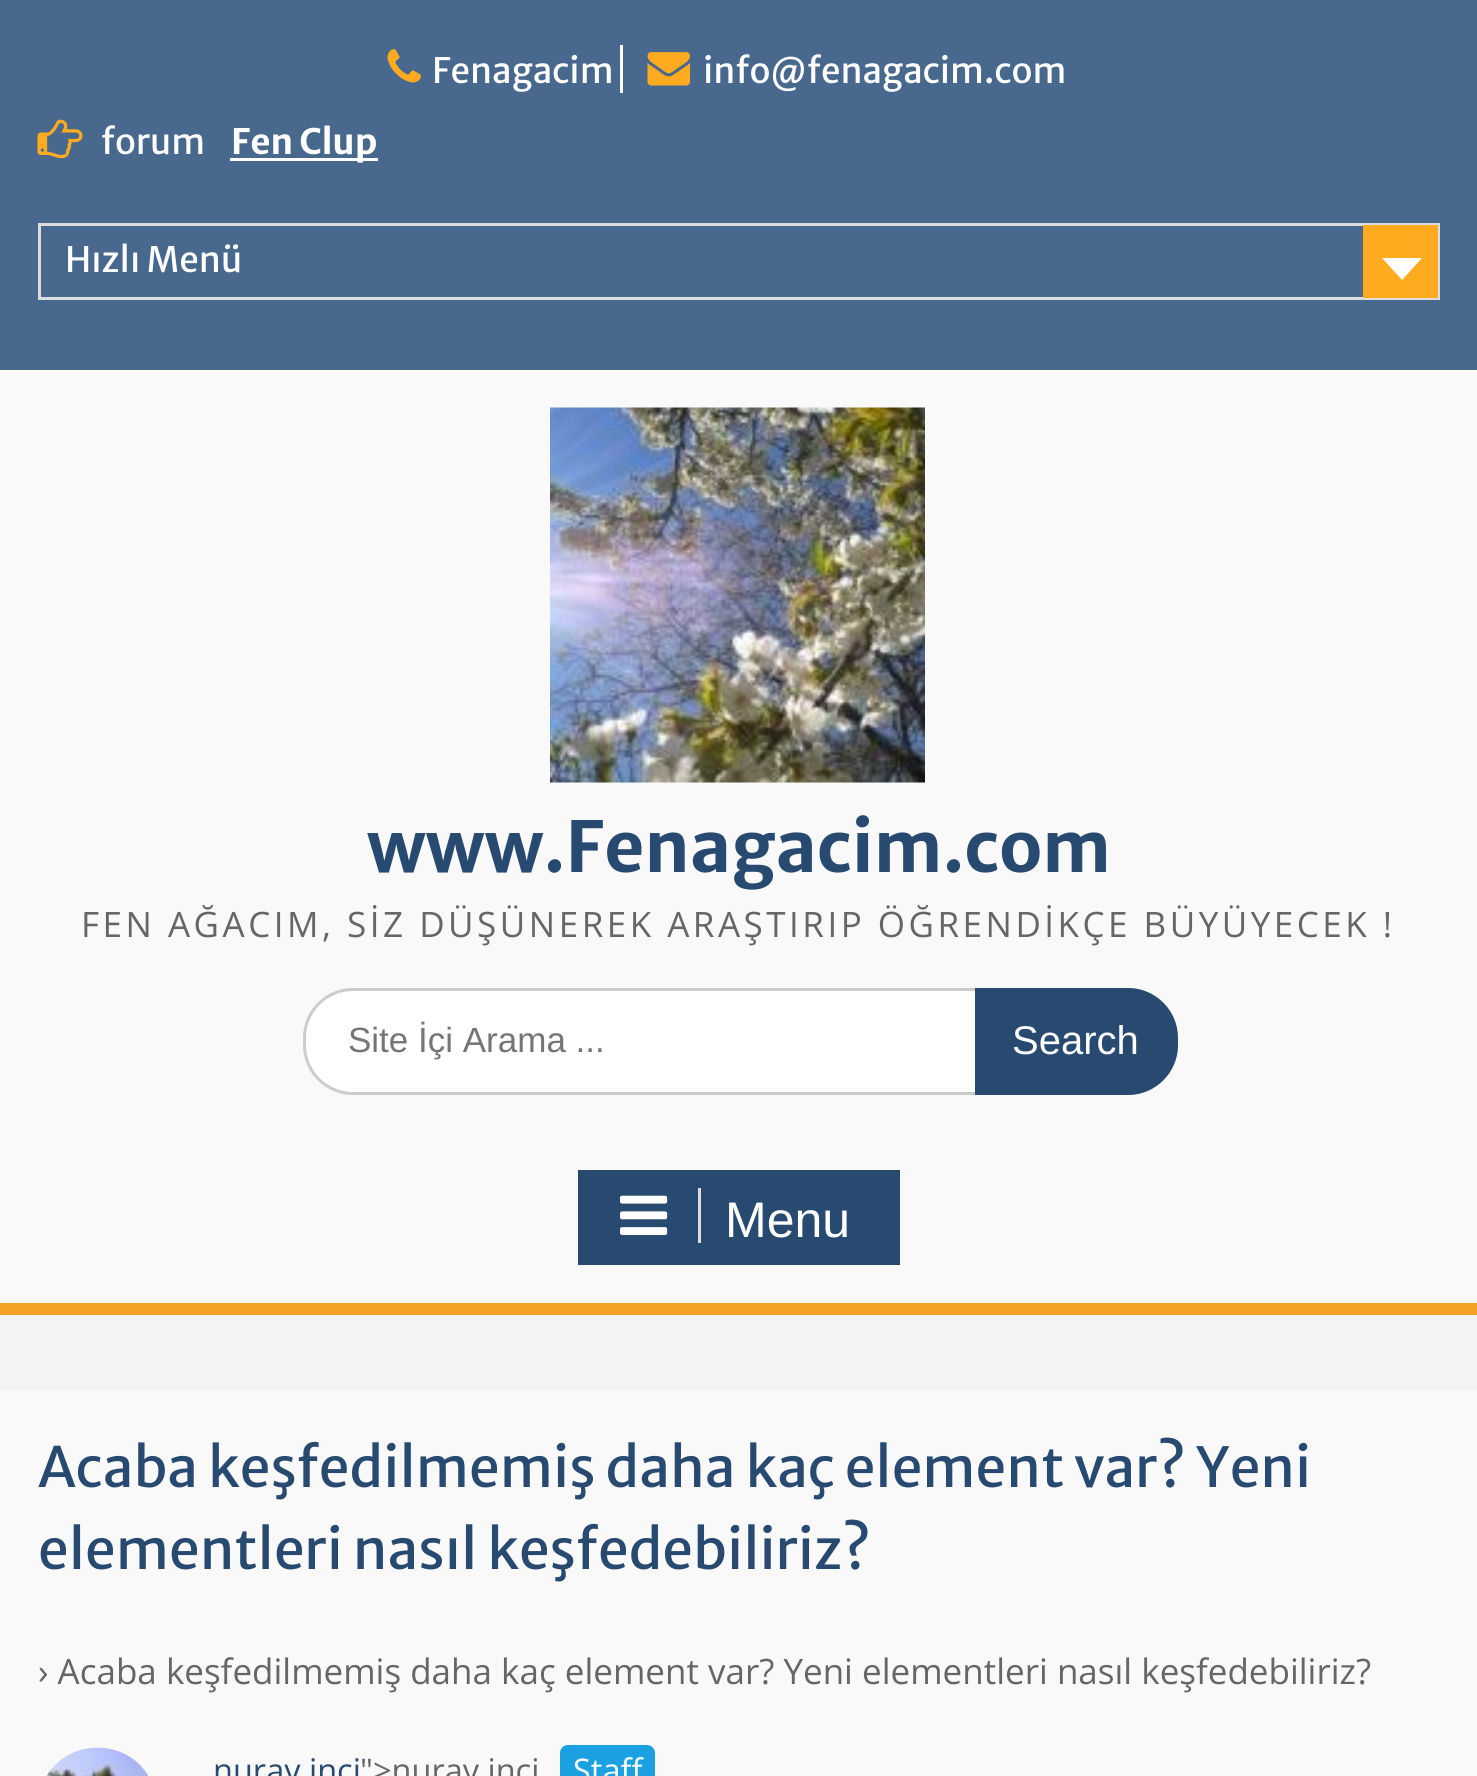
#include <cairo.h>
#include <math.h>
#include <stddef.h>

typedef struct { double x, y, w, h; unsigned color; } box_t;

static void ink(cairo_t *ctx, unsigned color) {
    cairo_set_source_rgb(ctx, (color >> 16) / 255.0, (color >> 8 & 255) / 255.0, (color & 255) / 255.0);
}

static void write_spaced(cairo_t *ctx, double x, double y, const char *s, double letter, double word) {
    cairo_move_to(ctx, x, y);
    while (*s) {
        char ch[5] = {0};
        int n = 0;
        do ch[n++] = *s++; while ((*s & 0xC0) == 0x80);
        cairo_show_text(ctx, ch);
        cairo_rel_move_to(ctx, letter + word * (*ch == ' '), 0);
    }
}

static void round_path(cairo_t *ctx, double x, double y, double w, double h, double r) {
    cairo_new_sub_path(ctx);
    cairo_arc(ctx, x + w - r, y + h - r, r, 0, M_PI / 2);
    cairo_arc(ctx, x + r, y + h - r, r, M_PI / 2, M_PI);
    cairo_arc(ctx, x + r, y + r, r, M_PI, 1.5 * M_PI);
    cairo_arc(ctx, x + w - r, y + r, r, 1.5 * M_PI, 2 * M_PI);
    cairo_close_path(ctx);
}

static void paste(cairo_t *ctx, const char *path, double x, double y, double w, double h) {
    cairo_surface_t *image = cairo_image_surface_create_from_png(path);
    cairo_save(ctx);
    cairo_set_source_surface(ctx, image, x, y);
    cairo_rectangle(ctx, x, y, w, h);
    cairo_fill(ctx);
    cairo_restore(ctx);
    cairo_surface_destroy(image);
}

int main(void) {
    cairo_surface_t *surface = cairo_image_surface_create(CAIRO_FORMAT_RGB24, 1477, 1776);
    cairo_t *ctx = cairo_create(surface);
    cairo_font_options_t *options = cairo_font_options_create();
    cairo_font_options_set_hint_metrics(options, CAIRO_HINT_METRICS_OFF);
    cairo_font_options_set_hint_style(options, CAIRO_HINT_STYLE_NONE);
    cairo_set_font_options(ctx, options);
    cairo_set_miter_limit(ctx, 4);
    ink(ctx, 0xF9F9F9);
    cairo_paint(ctx);
    ink(ctx, 0x49688E);
    cairo_rectangle(ctx, 0, 0, 1477, 370);
    cairo_fill(ctx);
    paste(ctx, "media/1.png", 387, 49, 34, 34);
    cairo_select_font_face(ctx, "Merriweather Sans", CAIRO_FONT_SLANT_NORMAL, CAIRO_FONT_WEIGHT_NORMAL);
    cairo_set_font_size(ctx, 35);
    ink(ctx, 0xFFFFFF);
    cairo_move_to(ctx, 432, 83);
    cairo_show_text(ctx, "Fenagacim");
    cairo_rectangle(ctx, 620, 45, 3, 48);
    cairo_fill(ctx);
    paste(ctx, "media/2.png", 647, 52, 43, 34);
    cairo_move_to(ctx, 703, 83);
    cairo_show_text(ctx, "info@fenagacim.com");
    paste(ctx, "media/3.png", 37, 119, 46, 40);
    cairo_move_to(ctx, 101, 154);
    cairo_show_text(ctx, "forum");
    cairo_rectangle(ctx, 230, 158, 148, 3);
    cairo_fill(ctx);
    cairo_select_font_face(ctx, "Merriweather Sans", CAIRO_FONT_SLANT_NORMAL, CAIRO_FONT_WEIGHT_BOLD);
    cairo_move_to(ctx, 231, 154);
    cairo_show_text(ctx, "Fen Clup");
    cairo_rectangle(ctx, 39.5, 224.5, 1399, 74);
    ink(ctx, 0xDDDDDD);
    cairo_set_line_width(ctx, 3);
    cairo_stroke(ctx);
    cairo_select_font_face(ctx, "Merriweather Sans", CAIRO_FONT_SLANT_NORMAL, CAIRO_FONT_WEIGHT_NORMAL);
    ink(ctx, 0xFFFFFF);
    cairo_move_to(ctx, 65, 272);
    cairo_show_text(ctx, "Hızlı Menü");
    ink(ctx, 0xFFAB1F);
    cairo_rectangle(ctx, 1363, 225, 75, 73);
    cairo_fill(ctx);
    ink(ctx, 0xFFFFFF);
    cairo_new_path(ctx);
    cairo_move_to(ctx, 1382, 258);
    cairo_line_to(ctx, 1422, 258);
    cairo_line_to(ctx, 1402, 280);
    cairo_close_path(ctx);
    cairo_fill(ctx);
    paste(ctx, "media/4.png", 550, 407, 375, 376);
    cairo_select_font_face(ctx, "Merriweather Sans", CAIRO_FONT_SLANT_NORMAL, CAIRO_FONT_WEIGHT_BOLD);
    cairo_set_font_size(ctx, 70);
    ink(ctx, 0x294A70);
    cairo_move_to(ctx, 367, 872);
    cairo_show_text(ctx, "www.Fenagacim.com");
    cairo_select_font_face(ctx, "Open Sans", CAIRO_FONT_SLANT_NORMAL, CAIRO_FONT_WEIGHT_NORMAL);
    cairo_set_font_size(ctx, 35);
    ink(ctx, 0x666666);
    write_spaced(ctx, 81, 937, "FEN AĞACIM, SİZ DÜŞÜNEREK ARAŞTIRIP ÖĞRENDİKÇE BÜYÜYECEK !", 3.5, 0);
    ink(ctx, 0xFFFFFF);
    round_path(ctx, 304.5, 989.5, 872, 104, 48.5);
    cairo_fill_preserve(ctx);
    ink(ctx, 0xCCCCCC);
    cairo_stroke(ctx);
    cairo_select_font_face(ctx, "Liberation Sans", CAIRO_FONT_SLANT_NORMAL, CAIRO_FONT_WEIGHT_NORMAL);
    ink(ctx, 0x757575);
    cairo_move_to(ctx, 348, 1052);
    cairo_show_text(ctx, "Site İçi Arama ...");
    ink(ctx, 0x294A70);
    cairo_new_path(ctx);
    cairo_move_to(ctx, 975, 988);
    cairo_line_to(ctx, 1128, 988);
    cairo_curve_to(ctx, 1155.5, 988, 1178, 1010.5, 1178, 1038);
    cairo_line_to(ctx, 1178, 1045);
    cairo_curve_to(ctx, 1178, 1072.5, 1155.5, 1095, 1128, 1095);
    cairo_line_to(ctx, 975, 1095);
    cairo_close_path(ctx);
    cairo_fill(ctx);
    cairo_set_font_size(ctx, 40);
    ink(ctx, 0xFFFFFF);
    cairo_move_to(ctx, 1012, 1054);
    cairo_show_text(ctx, "Search");
    {
        static const box_t items[] = {
            {0, 1303, 1477, 12, 0xF4A024},
            {578, 1170, 322, 95, 0x294A70},
            {698, 1188, 3, 55, 0xDDDDDD},
        };
        for (size_t i = 0; i < sizeof items / sizeof *items; i++) {
            ink(ctx, items[i].color);
            cairo_rectangle(ctx, items[i].x, items[i].y, items[i].w, items[i].h);
            cairo_fill(ctx);
        }
    }
    paste(ctx, "media/5.png", 620, 1195, 48, 40);
    cairo_set_font_size(ctx, 50);
    ink(ctx, 0xFFFFFF);
    cairo_move_to(ctx, 725, 1237);
    cairo_show_text(ctx, "Menu");
    ink(ctx, 0xF4F4F4);
    cairo_rectangle(ctx, 0, 1315, 1477, 75);
    cairo_fill(ctx);
    cairo_select_font_face(ctx, "Merriweather Sans", CAIRO_FONT_SLANT_NORMAL, CAIRO_FONT_WEIGHT_NORMAL);
    cairo_set_font_size(ctx, 55);
    ink(ctx, 0x294A70);
    cairo_move_to(ctx, 38, 1487);
    cairo_show_text(ctx, "Acaba keşfedilmemiş daha kaç element var? Yeni");
    cairo_move_to(ctx, 38, 1569);
    cairo_show_text(ctx, "elementleri nasıl keşfedebiliriz?");
    cairo_select_font_face(ctx, "Open Sans", CAIRO_FONT_SLANT_NORMAL, CAIRO_FONT_WEIGHT_NORMAL);
    cairo_set_font_size(ctx, 35);
    ink(ctx, 0x666666);
    cairo_move_to(ctx, 38, 1684);
    cairo_show_text(ctx, "› Acaba keşfedilmemiş daha kaç element var? Yeni elementleri nasıl keşfedebiliriz?");
    paste(ctx, "media/6.png", 46, 1747, 103, 29);
    cairo_set_font_size(ctx, 32.5);
    ink(ctx, 0x294A70);
    cairo_move_to(ctx, 213, 1782);
    cairo_show_text(ctx, "nuray inci");
    ink(ctx, 0x666666);
    cairo_move_to(ctx, 360, 1782);
    cairo_show_text(ctx, "\">nuray inci");
    ink(ctx, 0x1BA1E2);
    round_path(ctx, 560, 1745, 95, 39, 8);
    cairo_fill(ctx);
    ink(ctx, 0xFFFFFF);
    cairo_move_to(ctx, 573, 1782);
    cairo_show_text(ctx, "Staff");
    cairo_surface_write_to_png(surface, "image.png");
    cairo_font_options_destroy(options);
    cairo_destroy(ctx);
    cairo_surface_destroy(surface);
    return 0;
}
